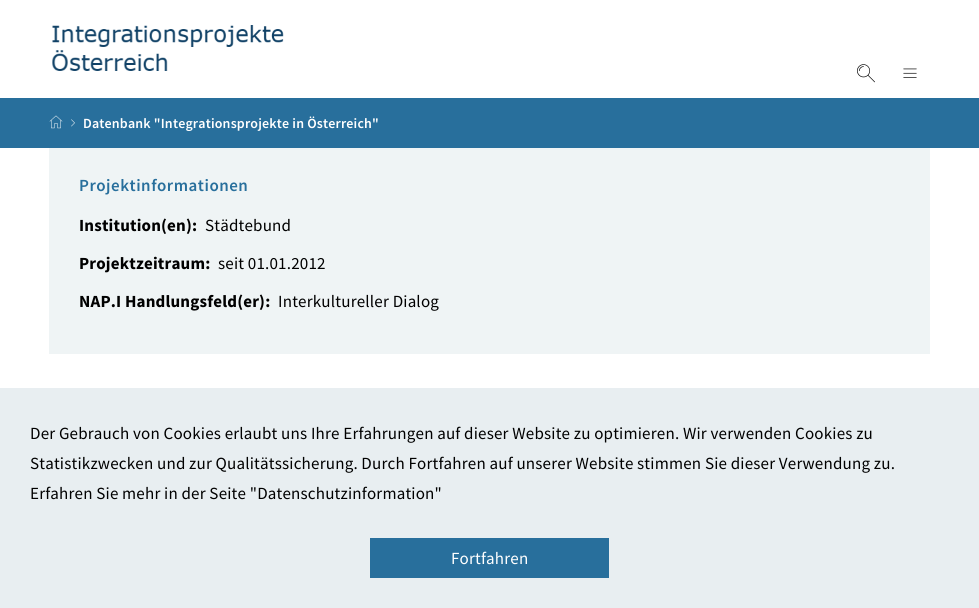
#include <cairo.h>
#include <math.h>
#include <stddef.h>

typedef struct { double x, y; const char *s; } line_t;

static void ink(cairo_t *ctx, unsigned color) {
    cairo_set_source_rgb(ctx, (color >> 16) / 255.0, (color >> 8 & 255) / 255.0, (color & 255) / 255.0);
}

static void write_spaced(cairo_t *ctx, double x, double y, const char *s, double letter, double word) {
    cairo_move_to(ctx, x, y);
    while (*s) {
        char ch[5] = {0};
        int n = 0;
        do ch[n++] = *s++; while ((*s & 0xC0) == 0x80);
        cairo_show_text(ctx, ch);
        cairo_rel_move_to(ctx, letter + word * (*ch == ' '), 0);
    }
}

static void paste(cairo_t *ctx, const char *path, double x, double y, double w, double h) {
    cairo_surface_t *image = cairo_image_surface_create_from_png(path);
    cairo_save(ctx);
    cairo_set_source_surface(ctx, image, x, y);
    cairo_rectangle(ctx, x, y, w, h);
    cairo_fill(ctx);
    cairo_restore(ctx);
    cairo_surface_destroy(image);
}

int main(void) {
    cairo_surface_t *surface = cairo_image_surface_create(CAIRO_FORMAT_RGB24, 979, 608);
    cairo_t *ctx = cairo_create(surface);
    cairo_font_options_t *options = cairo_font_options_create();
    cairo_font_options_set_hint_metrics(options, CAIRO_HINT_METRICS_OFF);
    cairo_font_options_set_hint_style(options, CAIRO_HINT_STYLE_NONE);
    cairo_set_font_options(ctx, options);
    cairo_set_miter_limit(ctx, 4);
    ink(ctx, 0xFFFFFF);
    cairo_paint(ctx);
    paste(ctx, "media/1.png", 52, 25, 232, 46);
    paste(ctx, "media/2.png", 857, 64, 18, 19);
    paste(ctx, "media/3.png", 903, 68, 14, 10);
    ink(ctx, 0x286F9C);
    cairo_rectangle(ctx, 0, 98, 979, 50);
    cairo_fill(ctx);
    paste(ctx, "media/4.png", 49, 115, 14, 14);
    paste(ctx, "media/5.png", 71, 119, 4, 8);
    cairo_select_font_face(ctx, "Source Sans Pro SemiBold", CAIRO_FONT_SLANT_NORMAL, CAIRO_FONT_WEIGHT_NORMAL);
    cairo_set_font_size(ctx, 14);
    ink(ctx, 0xFFFFFF);
    write_spaced(ctx, 83, 128, "Datenbank \"Integrationsprojekte in Österreich\"", 0.18, 0);
    ink(ctx, 0xEFF4F5);
    cairo_rectangle(ctx, 49, 148, 881, 206);
    cairo_fill(ctx);
    cairo_set_font_size(ctx, 17);
    ink(ctx, 0x286F9C);
    write_spaced(ctx, 79, 191, "Projektinformationen", 0.5, 0);
    cairo_select_font_face(ctx, "Source Sans Pro", CAIRO_FONT_SLANT_NORMAL, CAIRO_FONT_WEIGHT_BOLD);
    ink(ctx, 0x000000);
    write_spaced(ctx, 79, 231, "Institution(en):", 0.18, 0);
    cairo_select_font_face(ctx, "Source Sans Pro", CAIRO_FONT_SLANT_NORMAL, CAIRO_FONT_WEIGHT_NORMAL);
    write_spaced(ctx, 205, 231, "Städtebund", 0.18, 0);
    cairo_select_font_face(ctx, "Source Sans Pro", CAIRO_FONT_SLANT_NORMAL, CAIRO_FONT_WEIGHT_BOLD);
    write_spaced(ctx, 79, 269, "Projektzeitraum:", 0.18, 0);
    cairo_select_font_face(ctx, "Source Sans Pro", CAIRO_FONT_SLANT_NORMAL, CAIRO_FONT_WEIGHT_NORMAL);
    write_spaced(ctx, 218, 269, "seit 01.01.2012", 0.18, 0);
    cairo_select_font_face(ctx, "Source Sans Pro", CAIRO_FONT_SLANT_NORMAL, CAIRO_FONT_WEIGHT_BOLD);
    write_spaced(ctx, 79, 307, "NAP.I Handlungsfeld(er):", 0.18, 0);
    cairo_select_font_face(ctx, "Source Sans Pro", CAIRO_FONT_SLANT_NORMAL, CAIRO_FONT_WEIGHT_NORMAL);
    write_spaced(ctx, 278, 307, "Interkultureller Dialog", 0.18, 0);
    ink(ctx, 0xE8EEF1);
    cairo_rectangle(ctx, 0, 388, 979, 220);
    cairo_fill(ctx);
    ink(ctx, 0x000000);
    {
        static const line_t items[] = {
            {30, 439, "Der Gebrauch von Cookies erlaubt uns Ihre Erfahrungen auf dieser Website zu optimieren. Wir verwenden Cookies zu"},
            {30, 469, "Statistikzwecken und zur Qualitätssicherung. Durch Fortfahren auf unserer Website stimmen Sie dieser Verwendung zu."},
            {30, 499, "Erfahren Sie mehr in der Seite \"Datenschutzinformation\""},
        };
        for (size_t i = 0; i < sizeof items / sizeof *items; i++) {
            write_spaced(ctx, items[i].x, items[i].y, items[i].s, 0.18, 0);
        }
    }
    ink(ctx, 0x286F9C);
    cairo_rectangle(ctx, 370, 538, 239, 40);
    cairo_fill(ctx);
    ink(ctx, 0xFFFFFF);
    write_spaced(ctx, 451, 564, "Fortfahren", 0.18, 0);
    cairo_surface_write_to_png(surface, "image.png");
    cairo_font_options_destroy(options);
    cairo_destroy(ctx);
    cairo_surface_destroy(surface);
    return 0;
}
